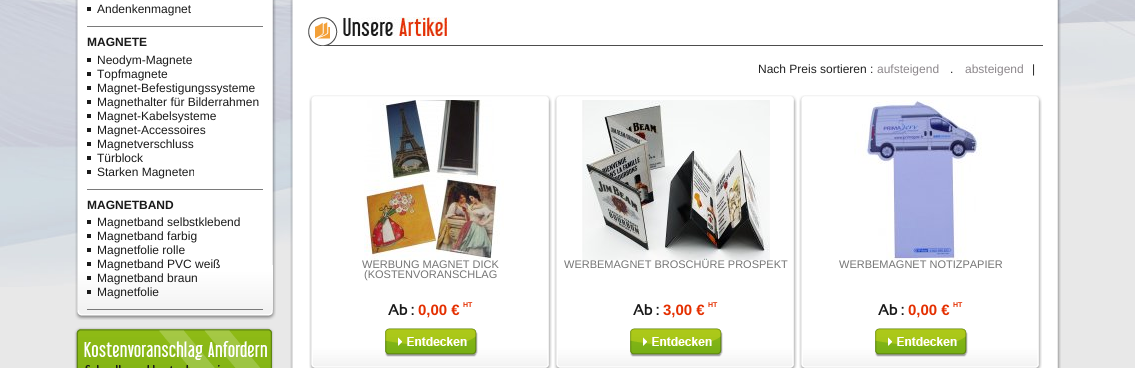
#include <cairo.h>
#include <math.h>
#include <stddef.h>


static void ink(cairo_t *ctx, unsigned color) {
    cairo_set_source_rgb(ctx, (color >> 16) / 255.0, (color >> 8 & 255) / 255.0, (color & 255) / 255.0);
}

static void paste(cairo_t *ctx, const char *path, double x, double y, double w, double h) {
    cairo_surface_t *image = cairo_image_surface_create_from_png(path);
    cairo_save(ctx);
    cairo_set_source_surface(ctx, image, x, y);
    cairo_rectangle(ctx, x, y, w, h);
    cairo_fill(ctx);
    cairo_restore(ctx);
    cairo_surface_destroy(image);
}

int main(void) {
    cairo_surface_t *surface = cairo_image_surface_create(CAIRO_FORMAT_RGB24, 1135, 368);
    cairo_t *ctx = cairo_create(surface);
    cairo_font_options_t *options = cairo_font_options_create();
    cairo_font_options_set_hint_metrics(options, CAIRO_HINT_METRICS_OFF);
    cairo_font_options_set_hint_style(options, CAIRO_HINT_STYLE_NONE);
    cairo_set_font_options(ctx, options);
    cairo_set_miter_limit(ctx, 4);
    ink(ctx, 0xE8E8E8);
    cairo_paint(ctx);
    paste(ctx, "media/1.png", 0, 0, 1135, 287);
    paste(ctx, "media/2.png", 75, 0, 201, 310);
    paste(ctx, "media/3.png", 78, 265, 195, 45);
    ink(ctx, 0x7A7A7A);
    cairo_rectangle(ctx, 87, 26, 176, 1);
    cairo_fill(ctx);
    ink(ctx, 0x1B1B1B);
    cairo_rectangle(ctx, 87, 7, 4, 4);
    cairo_fill(ctx);
    cairo_select_font_face(ctx, "Liberation Sans", CAIRO_FONT_SLANT_NORMAL, CAIRO_FONT_WEIGHT_NORMAL);
    cairo_set_font_size(ctx, 12);
    ink(ctx, 0x1A1A1A);
    cairo_move_to(ctx, 97, 13);
    cairo_show_text(ctx, "Andenkenmagnet");
    ink(ctx, 0x7A7A7A);
    cairo_rectangle(ctx, 87, 189, 176, 1);
    cairo_fill(ctx);
    cairo_select_font_face(ctx, "Liberation Sans", CAIRO_FONT_SLANT_NORMAL, CAIRO_FONT_WEIGHT_BOLD);
    ink(ctx, 0x1A1A1A);
    cairo_move_to(ctx, 87, 46);
    cairo_show_text(ctx, "MAGNETE");
    ink(ctx, 0x1B1B1B);
    cairo_rectangle(ctx, 87, 58, 4, 4);
    cairo_fill(ctx);
    cairo_select_font_face(ctx, "Liberation Sans", CAIRO_FONT_SLANT_NORMAL, CAIRO_FONT_WEIGHT_NORMAL);
    ink(ctx, 0x1A1A1A);
    cairo_move_to(ctx, 97, 64);
    cairo_show_text(ctx, "Neodym-Magnete");
    ink(ctx, 0x1B1B1B);
    cairo_rectangle(ctx, 87, 72, 4, 4);
    cairo_fill(ctx);
    ink(ctx, 0x1A1A1A);
    cairo_move_to(ctx, 97, 78);
    cairo_show_text(ctx, "Topfmagnete");
    ink(ctx, 0x1B1B1B);
    cairo_rectangle(ctx, 87, 86, 4, 4);
    cairo_fill(ctx);
    ink(ctx, 0x1A1A1A);
    cairo_move_to(ctx, 97, 92);
    cairo_show_text(ctx, "Magnet-Befestigungssysteme");
    ink(ctx, 0x1B1B1B);
    cairo_rectangle(ctx, 87, 100, 4, 4);
    cairo_fill(ctx);
    ink(ctx, 0x1A1A1A);
    cairo_move_to(ctx, 97, 106);
    cairo_show_text(ctx, "Magnethalter für Bilderrahmen");
    ink(ctx, 0x1B1B1B);
    cairo_rectangle(ctx, 87, 114, 4, 4);
    cairo_fill(ctx);
    ink(ctx, 0x1A1A1A);
    cairo_move_to(ctx, 97, 120);
    cairo_show_text(ctx, "Magnet-Kabelsysteme");
    ink(ctx, 0x1B1B1B);
    cairo_rectangle(ctx, 87, 128, 4, 4);
    cairo_fill(ctx);
    ink(ctx, 0x1A1A1A);
    cairo_move_to(ctx, 97, 134);
    cairo_show_text(ctx, "Magnet-Accessoires");
    ink(ctx, 0x1B1B1B);
    cairo_rectangle(ctx, 87, 142, 4, 4);
    cairo_fill(ctx);
    ink(ctx, 0x1A1A1A);
    cairo_move_to(ctx, 97, 148);
    cairo_show_text(ctx, "Magnetverschluss");
    ink(ctx, 0x1B1B1B);
    cairo_rectangle(ctx, 87, 156, 4, 4);
    cairo_fill(ctx);
    ink(ctx, 0x1A1A1A);
    cairo_move_to(ctx, 97, 162);
    cairo_show_text(ctx, "Türblock");
    ink(ctx, 0x1B1B1B);
    cairo_rectangle(ctx, 87, 170, 4, 4);
    cairo_fill(ctx);
    ink(ctx, 0x1A1A1A);
    cairo_move_to(ctx, 97, 176);
    cairo_show_text(ctx, "Starken Magneten");
    ink(ctx, 0x7A7A7A);
    cairo_rectangle(ctx, 87, 309, 176, 1);
    cairo_fill(ctx);
    cairo_select_font_face(ctx, "Liberation Sans", CAIRO_FONT_SLANT_NORMAL, CAIRO_FONT_WEIGHT_BOLD);
    ink(ctx, 0x1A1A1A);
    cairo_move_to(ctx, 87, 209);
    cairo_show_text(ctx, "MAGNETBAND");
    ink(ctx, 0x1B1B1B);
    cairo_rectangle(ctx, 87, 220, 4, 4);
    cairo_fill(ctx);
    cairo_select_font_face(ctx, "Liberation Sans", CAIRO_FONT_SLANT_NORMAL, CAIRO_FONT_WEIGHT_NORMAL);
    ink(ctx, 0x1A1A1A);
    cairo_move_to(ctx, 97, 226);
    cairo_show_text(ctx, "Magnetband selbstklebend");
    ink(ctx, 0x1B1B1B);
    cairo_rectangle(ctx, 87, 234, 4, 4);
    cairo_fill(ctx);
    ink(ctx, 0x1A1A1A);
    cairo_move_to(ctx, 97, 240);
    cairo_show_text(ctx, "Magnetband farbig");
    ink(ctx, 0x1B1B1B);
    cairo_rectangle(ctx, 87, 248, 4, 4);
    cairo_fill(ctx);
    ink(ctx, 0x1A1A1A);
    cairo_move_to(ctx, 97, 254);
    cairo_show_text(ctx, "Magnetfolie rolle");
    ink(ctx, 0x1B1B1B);
    cairo_rectangle(ctx, 87, 262, 4, 4);
    cairo_fill(ctx);
    ink(ctx, 0x1A1A1A);
    cairo_move_to(ctx, 97, 268);
    cairo_show_text(ctx, "Magnetband PVC weiß");
    ink(ctx, 0x1B1B1B);
    cairo_rectangle(ctx, 87, 276, 4, 4);
    cairo_fill(ctx);
    ink(ctx, 0x1A1A1A);
    cairo_move_to(ctx, 97, 282);
    cairo_show_text(ctx, "Magnetband braun");
    ink(ctx, 0x1B1B1B);
    cairo_rectangle(ctx, 87, 290, 4, 4);
    cairo_fill(ctx);
    ink(ctx, 0x1A1A1A);
    cairo_move_to(ctx, 97, 296);
    cairo_show_text(ctx, "Magnetfolie");
    paste(ctx, "media/4.png", 75, 310, 201, 10);
    paste(ctx, "media/5.png", 74, 327, 200, 41);
    paste(ctx, "media/6.png", 290, 0, 771, 368);
    paste(ctx, "media/7.png", 308, 17, 35, 29);
    ink(ctx, 0x4D4D4D);
    cairo_rectangle(ctx, 343, 45, 700, 1);
    cairo_fill(ctx);
    paste(ctx, "media/8.png", 343, 17, 104, 19);
    ink(ctx, 0x202020);
    cairo_move_to(ctx, 758, 73);
    cairo_show_text(ctx, "Nach Preis sortieren :");
    ink(ctx, 0x8C878B);
    cairo_move_to(ctx, 877, 73);
    cairo_show_text(ctx, "aufsteigend");
    ink(ctx, 0x202020);
    cairo_move_to(ctx, 950, 73);
    cairo_show_text(ctx, ".");
    ink(ctx, 0x8C878B);
    cairo_move_to(ctx, 965, 73);
    cairo_show_text(ctx, "absteigend");
    ink(ctx, 0x202020);
    cairo_move_to(ctx, 1032, 73);
    cairo_show_text(ctx, "|");
    paste(ctx, "media/9.png", 309, 95, 243, 273);
    paste(ctx, "media/10.png", 364, 100, 140, 160);
    cairo_set_font_size(ctx, 11);
    ink(ctx, 0x747474);
    cairo_move_to(ctx, 362, 268);
    cairo_show_text(ctx, "WERBUNG MAGNET DICK");
    cairo_move_to(ctx, 364, 278);
    cairo_show_text(ctx, "(KOSTENVORANSCHLAG");
    cairo_select_font_face(ctx, "Sansation", CAIRO_FONT_SLANT_NORMAL, CAIRO_FONT_WEIGHT_BOLD);
    cairo_set_font_size(ctx, 15);
    ink(ctx, 0x1A1A1A);
    cairo_move_to(ctx, 388, 315);
    cairo_show_text(ctx, "Ab :");
    cairo_select_font_face(ctx, "Liberation Sans", CAIRO_FONT_SLANT_NORMAL, CAIRO_FONT_WEIGHT_BOLD);
    ink(ctx, 0xE42F00);
    cairo_move_to(ctx, 418, 315);
    cairo_show_text(ctx, "0,00 €");
    cairo_set_font_size(ctx, 7);
    cairo_move_to(ctx, 463, 307);
    cairo_show_text(ctx, "HT");
    paste(ctx, "media/11.png", 385, 328, 93, 29);
    paste(ctx, "media/9.png", 554, 95, 243, 273);
    paste(ctx, "media/12.png", 582, 100, 188, 160);
    cairo_select_font_face(ctx, "Liberation Sans", CAIRO_FONT_SLANT_NORMAL, CAIRO_FONT_WEIGHT_NORMAL);
    cairo_set_font_size(ctx, 11);
    ink(ctx, 0x747474);
    cairo_move_to(ctx, 564, 268);
    cairo_show_text(ctx, "WERBEMAGNET BROSCHÜRE PROSPEKT");
    cairo_select_font_face(ctx, "Sansation", CAIRO_FONT_SLANT_NORMAL, CAIRO_FONT_WEIGHT_BOLD);
    cairo_set_font_size(ctx, 15);
    ink(ctx, 0x1A1A1A);
    cairo_move_to(ctx, 633, 315);
    cairo_show_text(ctx, "Ab :");
    cairo_select_font_face(ctx, "Liberation Sans", CAIRO_FONT_SLANT_NORMAL, CAIRO_FONT_WEIGHT_BOLD);
    ink(ctx, 0xE42F00);
    cairo_move_to(ctx, 663, 315);
    cairo_show_text(ctx, "3,00 €");
    cairo_set_font_size(ctx, 7);
    cairo_move_to(ctx, 708, 307);
    cairo_show_text(ctx, "HT");
    paste(ctx, "media/11.png", 630, 328, 93, 29);
    paste(ctx, "media/9.png", 799, 95, 243, 273);
    paste(ctx, "media/13.png", 854, 100, 128, 160);
    cairo_select_font_face(ctx, "Liberation Sans", CAIRO_FONT_SLANT_NORMAL, CAIRO_FONT_WEIGHT_NORMAL);
    cairo_set_font_size(ctx, 11);
    ink(ctx, 0x747474);
    cairo_move_to(ctx, 839, 268);
    cairo_show_text(ctx, "WERBEMAGNET NOTIZPAPIER");
    cairo_select_font_face(ctx, "Sansation", CAIRO_FONT_SLANT_NORMAL, CAIRO_FONT_WEIGHT_BOLD);
    cairo_set_font_size(ctx, 15);
    ink(ctx, 0x1A1A1A);
    cairo_move_to(ctx, 878, 315);
    cairo_show_text(ctx, "Ab :");
    cairo_select_font_face(ctx, "Liberation Sans", CAIRO_FONT_SLANT_NORMAL, CAIRO_FONT_WEIGHT_BOLD);
    ink(ctx, 0xE42F00);
    cairo_move_to(ctx, 908, 315);
    cairo_show_text(ctx, "0,00 €");
    cairo_set_font_size(ctx, 7);
    cairo_move_to(ctx, 953, 307);
    cairo_show_text(ctx, "HT");
    paste(ctx, "media/11.png", 875, 328, 93, 29);
    cairo_surface_write_to_png(surface, "image.png");
    cairo_font_options_destroy(options);
    cairo_destroy(ctx);
    cairo_surface_destroy(surface);
    return 0;
}
